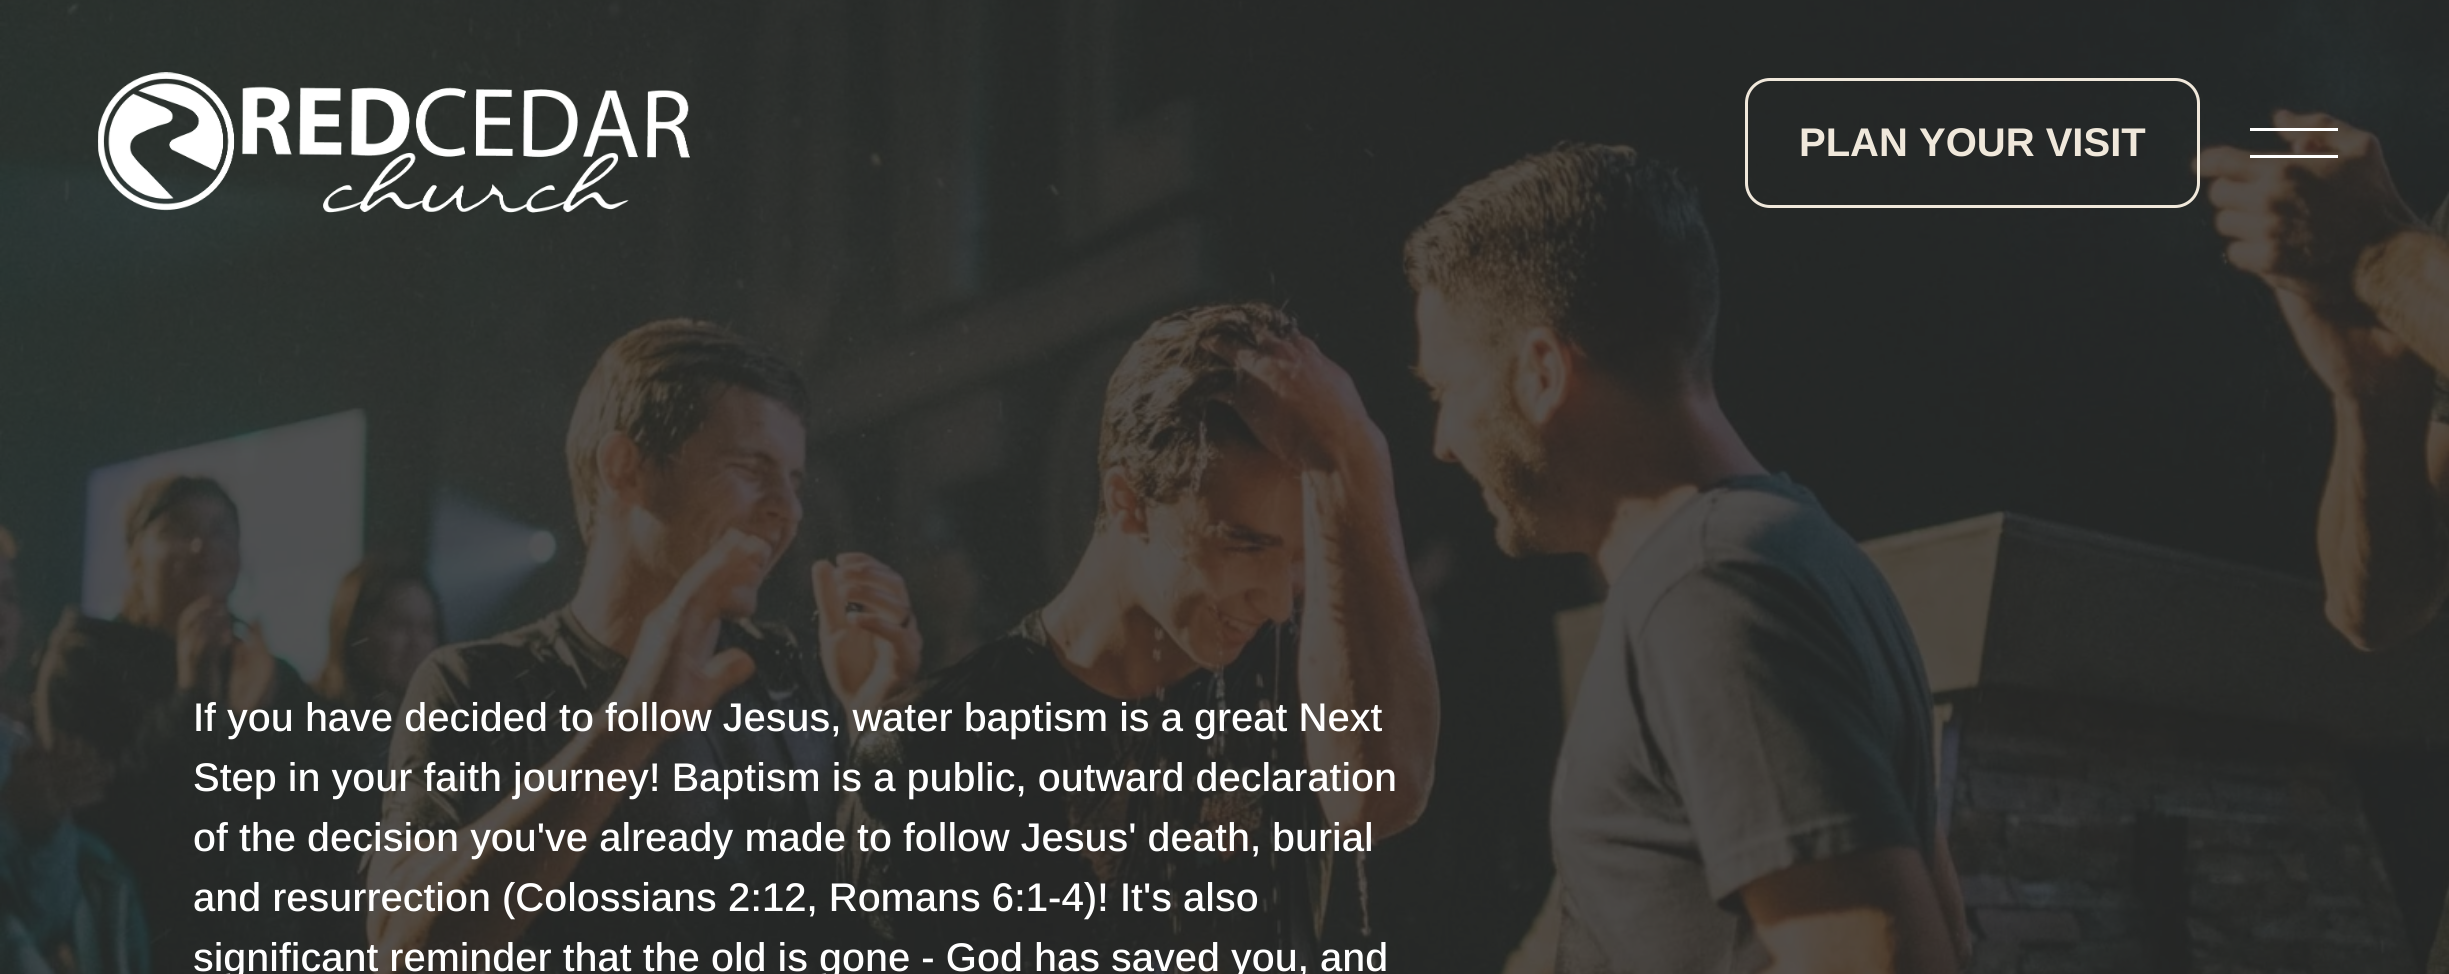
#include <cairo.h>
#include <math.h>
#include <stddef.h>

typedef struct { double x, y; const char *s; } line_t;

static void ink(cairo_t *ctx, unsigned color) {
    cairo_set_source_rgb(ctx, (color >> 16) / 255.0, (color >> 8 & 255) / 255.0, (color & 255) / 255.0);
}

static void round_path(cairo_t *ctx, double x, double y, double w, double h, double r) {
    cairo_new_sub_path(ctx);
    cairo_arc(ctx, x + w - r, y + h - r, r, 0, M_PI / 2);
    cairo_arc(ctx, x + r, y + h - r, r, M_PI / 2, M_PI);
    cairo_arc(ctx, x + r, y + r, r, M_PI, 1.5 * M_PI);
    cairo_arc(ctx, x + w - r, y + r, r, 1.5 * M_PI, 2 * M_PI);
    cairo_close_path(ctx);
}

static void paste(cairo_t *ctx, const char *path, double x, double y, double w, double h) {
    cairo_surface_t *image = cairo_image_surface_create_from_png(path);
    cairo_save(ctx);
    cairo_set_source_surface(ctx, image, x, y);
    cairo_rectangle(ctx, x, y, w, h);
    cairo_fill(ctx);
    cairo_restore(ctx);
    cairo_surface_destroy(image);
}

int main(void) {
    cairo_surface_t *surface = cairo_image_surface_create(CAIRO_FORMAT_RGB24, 2449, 974);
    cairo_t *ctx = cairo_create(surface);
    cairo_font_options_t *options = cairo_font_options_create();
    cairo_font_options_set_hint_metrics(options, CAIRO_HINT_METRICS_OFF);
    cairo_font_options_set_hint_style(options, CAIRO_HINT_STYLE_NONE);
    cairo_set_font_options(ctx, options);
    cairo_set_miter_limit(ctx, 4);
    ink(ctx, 0xFFFFFF);
    cairo_paint(ctx);
    paste(ctx, "media/2.png", 0, 0, 2449, 974);
    paste(ctx, "media/1.png", 98, 72, 592, 141);
    round_path(ctx, 1746.5, 79.5, 452, 127, 23.5);
    ink(ctx, 0xF0E8DB);
    cairo_set_line_width(ctx, 3);
    cairo_stroke(ctx);
    cairo_select_font_face(ctx, "Arimo", CAIRO_FONT_SLANT_NORMAL, CAIRO_FONT_WEIGHT_BOLD);
    cairo_set_font_size(ctx, 40);
    cairo_move_to(ctx, 1799, 156);
    cairo_show_text(ctx, "PLAN YOUR VISIT");
    ink(ctx, 0xFFFFFF);
    cairo_rectangle(ctx, 2250, 128, 88, 3);
    cairo_fill(ctx);
    cairo_rectangle(ctx, 2250, 155, 88, 3);
    cairo_fill(ctx);
    cairo_select_font_face(ctx, "Arimo Medium", CAIRO_FONT_SLANT_NORMAL, CAIRO_FONT_WEIGHT_NORMAL);
    {
        static const line_t items[] = {
            {193, 731, "If you have decided to follow Jesus, water baptism is a great Next"},
            {193, 791, "Step in your faith journey! Baptism is a public, outward declaration"},
            {193, 851, "of the decision you've already made to follow Jesus' death, burial"},
            {193, 911, "and resurrection (Colossians 2:12, Romans 6:1-4)! It's also"},
            {193, 971, "significant reminder that the old is gone - God has saved you, and"},
        };
        for (size_t i = 0; i < sizeof items / sizeof *items; i++) {
            cairo_move_to(ctx, items[i].x, items[i].y);
            cairo_show_text(ctx, items[i].s);
        }
    }
    cairo_surface_write_to_png(surface, "image.png");
    cairo_font_options_destroy(options);
    cairo_destroy(ctx);
    cairo_surface_destroy(surface);
    return 0;
}
